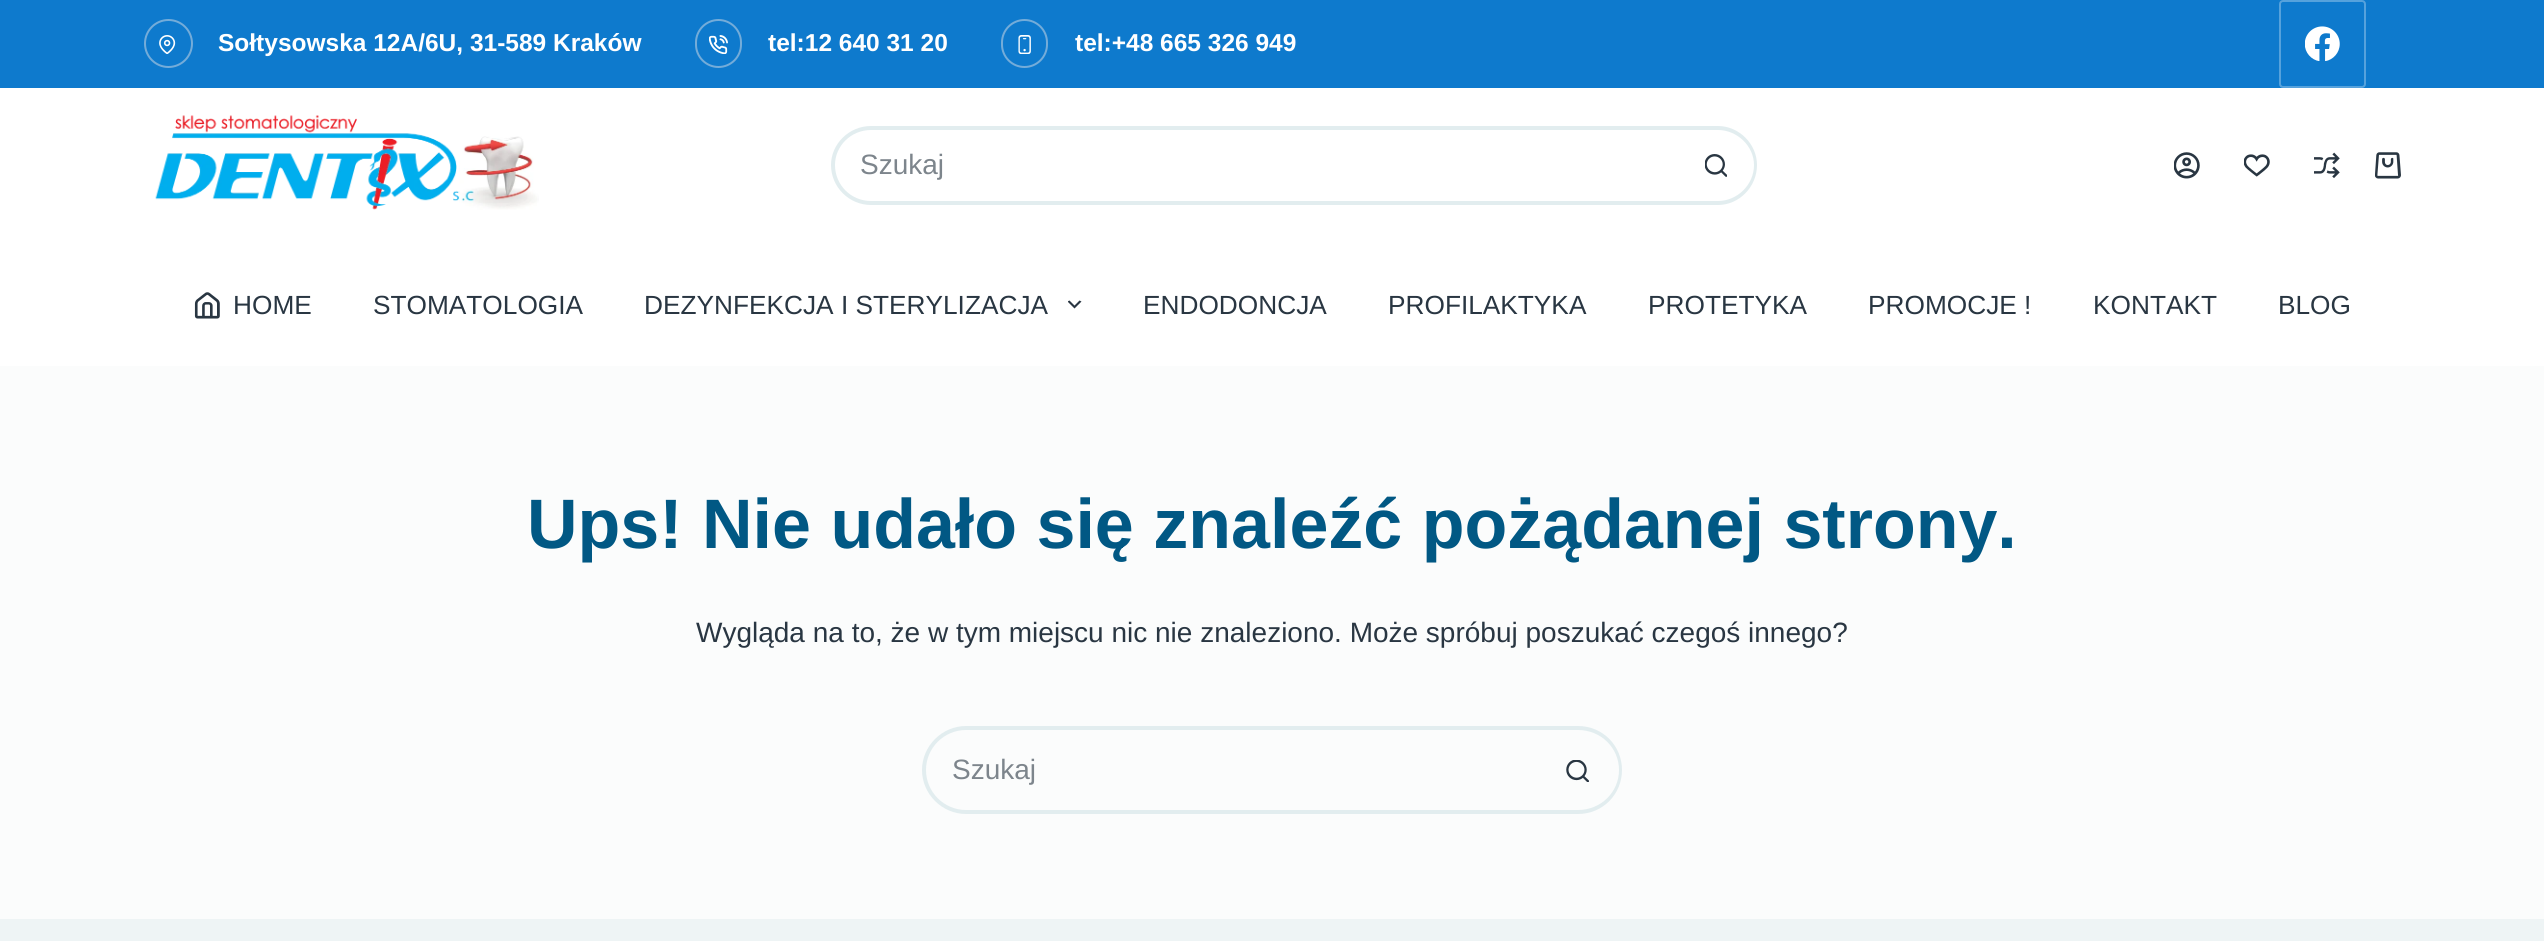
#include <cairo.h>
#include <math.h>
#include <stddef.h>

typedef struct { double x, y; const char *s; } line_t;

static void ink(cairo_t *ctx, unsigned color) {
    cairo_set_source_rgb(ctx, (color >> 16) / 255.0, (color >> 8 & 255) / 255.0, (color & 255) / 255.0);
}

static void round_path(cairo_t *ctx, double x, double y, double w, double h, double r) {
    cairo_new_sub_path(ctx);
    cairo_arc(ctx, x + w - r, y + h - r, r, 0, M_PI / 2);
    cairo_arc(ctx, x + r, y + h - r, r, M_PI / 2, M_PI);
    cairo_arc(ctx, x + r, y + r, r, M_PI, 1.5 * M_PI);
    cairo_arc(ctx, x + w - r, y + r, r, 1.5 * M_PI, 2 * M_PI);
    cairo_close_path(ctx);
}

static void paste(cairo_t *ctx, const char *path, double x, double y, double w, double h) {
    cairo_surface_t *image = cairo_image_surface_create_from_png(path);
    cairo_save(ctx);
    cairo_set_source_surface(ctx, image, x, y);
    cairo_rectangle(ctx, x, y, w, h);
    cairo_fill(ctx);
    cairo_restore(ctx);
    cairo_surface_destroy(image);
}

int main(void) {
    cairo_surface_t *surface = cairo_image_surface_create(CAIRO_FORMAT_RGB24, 2544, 941);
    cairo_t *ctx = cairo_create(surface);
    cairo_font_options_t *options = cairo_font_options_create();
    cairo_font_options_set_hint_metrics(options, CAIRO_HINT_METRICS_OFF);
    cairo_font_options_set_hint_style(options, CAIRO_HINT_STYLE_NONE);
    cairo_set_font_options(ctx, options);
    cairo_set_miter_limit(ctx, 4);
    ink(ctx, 0xFBFCFC);
    cairo_paint(ctx);
    ink(ctx, 0x0E7ACD);
    cairo_rectangle(ctx, 0, 0, 2544, 88);
    cairo_fill(ctx);
    cairo_arc(ctx, 168.5, 43.5, 23.5, 0, 2 * M_PI);
    ink(ctx, 0x74ACD9);
    cairo_stroke(ctx);
    paste(ctx, "media/1.png", 159, 35, 17, 19);
    cairo_select_font_face(ctx, "Liberation Sans", CAIRO_FONT_SLANT_NORMAL, CAIRO_FONT_WEIGHT_BOLD);
    cairo_set_font_size(ctx, 24.5);
    ink(ctx, 0xFFFFFF);
    cairo_move_to(ctx, 218, 51);
    cairo_show_text(ctx, "Sołtysowska 12A/6U, 31-589 Kraków");
    round_path(ctx, 696, 20, 45, 47, 22.5);
    ink(ctx, 0x74ACD9);
    cairo_stroke(ctx);
    paste(ctx, "media/2.png", 709, 35, 19, 19);
    ink(ctx, 0xFFFFFF);
    cairo_move_to(ctx, 768, 51);
    cairo_show_text(ctx, "tel:12 640 31 20");
    round_path(ctx, 1002, 20, 45, 47, 22.5);
    ink(ctx, 0x74ACD9);
    cairo_stroke(ctx);
    paste(ctx, "media/3.png", 1018, 35, 13, 19);
    ink(ctx, 0xFFFFFF);
    cairo_move_to(ctx, 1075, 51);
    cairo_show_text(ctx, "tel:+48 665 326 949");
    round_path(ctx, 2280, 1, 85, 86, 3);
    ink(ctx, 0x56A2DC);
    cairo_stroke(ctx);
    paste(ctx, "media/4.png", 2305, 26, 35, 35);
    ink(ctx, 0xFFFFFF);
    cairo_rectangle(ctx, 0, 88, 2544, 278);
    cairo_fill(ctx);
    paste(ctx, "media/5.png", 155, 115, 384, 95);
    ink(ctx, 0xE2EDEF);
    cairo_set_fill_rule(ctx, CAIRO_FILL_RULE_EVEN_ODD);
    cairo_new_path(ctx);
    cairo_move_to(ctx, 871, 126);
    cairo_line_to(ctx, 1678, 126);
    cairo_line_to(ctx, 1678, 205);
    cairo_line_to(ctx, 871, 205);
    cairo_curve_to(ctx, 849, 205, 831, 187, 831, 165);
    cairo_curve_to(ctx, 831, 144, 849, 126, 871, 126);
    cairo_close_path(ctx);
    cairo_move_to(ctx, 871, 130);
    cairo_line_to(ctx, 1678, 130);
    cairo_line_to(ctx, 1678, 201);
    cairo_line_to(ctx, 871, 201);
    cairo_curve_to(ctx, 851, 201, 835, 185, 835, 165);
    cairo_curve_to(ctx, 835, 146, 851, 130, 871, 130);
    cairo_close_path(ctx);
    cairo_fill(ctx);
    cairo_select_font_face(ctx, "Liberation Sans", CAIRO_FONT_SLANT_NORMAL, CAIRO_FONT_WEIGHT_NORMAL);
    cairo_set_font_size(ctx, 28);
    ink(ctx, 0x7D858C);
    cairo_move_to(ctx, 860, 174);
    cairo_show_text(ctx, "Szukaj");
    ink(ctx, 0xE2EDEF);
    cairo_new_path(ctx);
    cairo_move_to(ctx, 1678, 126);
    cairo_line_to(ctx, 1718, 126);
    cairo_curve_to(ctx, 1739, 126, 1757, 144, 1757, 165);
    cairo_curve_to(ctx, 1757, 187, 1739, 205, 1718, 205);
    cairo_line_to(ctx, 1678, 205);
    cairo_close_path(ctx);
    cairo_move_to(ctx, 1678, 130);
    cairo_line_to(ctx, 1718, 130);
    cairo_curve_to(ctx, 1737, 130, 1754, 146, 1754, 165);
    cairo_curve_to(ctx, 1754, 185, 1737, 201, 1718, 201);
    cairo_line_to(ctx, 1678, 201);
    cairo_close_path(ctx);
    cairo_fill(ctx);
    paste(ctx, "media/6.png", 1705, 154, 22, 23);
    paste(ctx, "media/7.png", 2174, 152, 26, 27);
    paste(ctx, "media/8.png", 2244, 154, 26, 23);
    paste(ctx, "media/9.png", 2314, 152, 26, 26);
    paste(ctx, "media/10.png", 2375, 152, 26, 27);
    paste(ctx, "media/11.png", 194, 292, 26, 27);
    cairo_set_font_size(ctx, 26.25);
    ink(ctx, 0x293642);
    {
        static const line_t items[] = {
            {233, 314, "HOME"},
            {373, 314, "STOMATOLOGIA"},
            {644, 314, "DEZYNFEKCJA I STERYLIZACJA"},
        };
        for (size_t i = 0; i < sizeof items / sizeof *items; i++) {
            cairo_move_to(ctx, items[i].x, items[i].y);
            cairo_show_text(ctx, items[i].s);
        }
    }
    paste(ctx, "media/12.png", 1068, 300, 14, 9);
    {
        static const line_t items[] = {
            {1143, 314, "ENDODONCJA"},
            {1388, 314, "PROFILAKTYKA"},
            {1648, 314, "PROTETYKA"},
            {1868, 314, "PROMOCJE !"},
            {2093, 314, "KONTAKT"},
            {2278, 314, "BLOG"},
        };
        for (size_t i = 0; i < sizeof items / sizeof *items; i++) {
            cairo_move_to(ctx, items[i].x, items[i].y);
            cairo_show_text(ctx, items[i].s);
        }
    }
    cairo_select_font_face(ctx, "Liberation Sans", CAIRO_FONT_SLANT_NORMAL, CAIRO_FONT_WEIGHT_BOLD);
    cairo_set_font_size(ctx, 70);
    ink(ctx, 0x015884);
    cairo_move_to(ctx, 527, 548);
    cairo_show_text(ctx, "Ups! Nie udało się znaleźć pożądanej strony.");
    cairo_select_font_face(ctx, "Liberation Sans", CAIRO_FONT_SLANT_NORMAL, CAIRO_FONT_WEIGHT_NORMAL);
    cairo_set_font_size(ctx, 28);
    ink(ctx, 0x293642);
    cairo_move_to(ctx, 696, 642);
    cairo_show_text(ctx, "Wygląda na to, że w tym miejscu nic nie znaleziono. Może spróbuj poszukać czegoś innego?");
    ink(ctx, 0xE2EDEF);
    cairo_new_path(ctx);
    cairo_move_to(ctx, 966, 726);
    cairo_line_to(ctx, 1535, 726);
    cairo_line_to(ctx, 1535, 814);
    cairo_line_to(ctx, 966, 814);
    cairo_curve_to(ctx, 942, 814, 922, 794, 922, 770);
    cairo_curve_to(ctx, 922, 746, 942, 726, 966, 726);
    cairo_close_path(ctx);
    cairo_move_to(ctx, 966, 730);
    cairo_line_to(ctx, 1535, 730);
    cairo_line_to(ctx, 1535, 810);
    cairo_line_to(ctx, 966, 810);
    cairo_curve_to(ctx, 944, 810, 926, 792, 926, 770);
    cairo_curve_to(ctx, 926, 748, 944, 730, 966, 730);
    cairo_close_path(ctx);
    cairo_fill(ctx);
    ink(ctx, 0x7D858C);
    cairo_move_to(ctx, 952, 779);
    cairo_show_text(ctx, "Szukaj");
    ink(ctx, 0xE2EDEF);
    cairo_new_path(ctx);
    cairo_move_to(ctx, 1535, 726);
    cairo_line_to(ctx, 1578, 726);
    cairo_curve_to(ctx, 1603, 726, 1622, 746, 1622, 770);
    cairo_curve_to(ctx, 1622, 794, 1603, 814, 1578, 814);
    cairo_line_to(ctx, 1535, 814);
    cairo_close_path(ctx);
    cairo_move_to(ctx, 1535, 730);
    cairo_line_to(ctx, 1578, 730);
    cairo_curve_to(ctx, 1601, 730, 1619, 748, 1619, 770);
    cairo_curve_to(ctx, 1619, 792, 1601, 810, 1578, 810);
    cairo_line_to(ctx, 1535, 810);
    cairo_close_path(ctx);
    cairo_fill(ctx);
    paste(ctx, "media/13.png", 1566, 760, 23, 22);
    ink(ctx, 0xEEF4F5);
    cairo_rectangle(ctx, 0, 919, 2544, 22);
    cairo_fill(ctx);
    cairo_surface_write_to_png(surface, "image.png");
    cairo_font_options_destroy(options);
    cairo_destroy(ctx);
    cairo_surface_destroy(surface);
    return 0;
}
